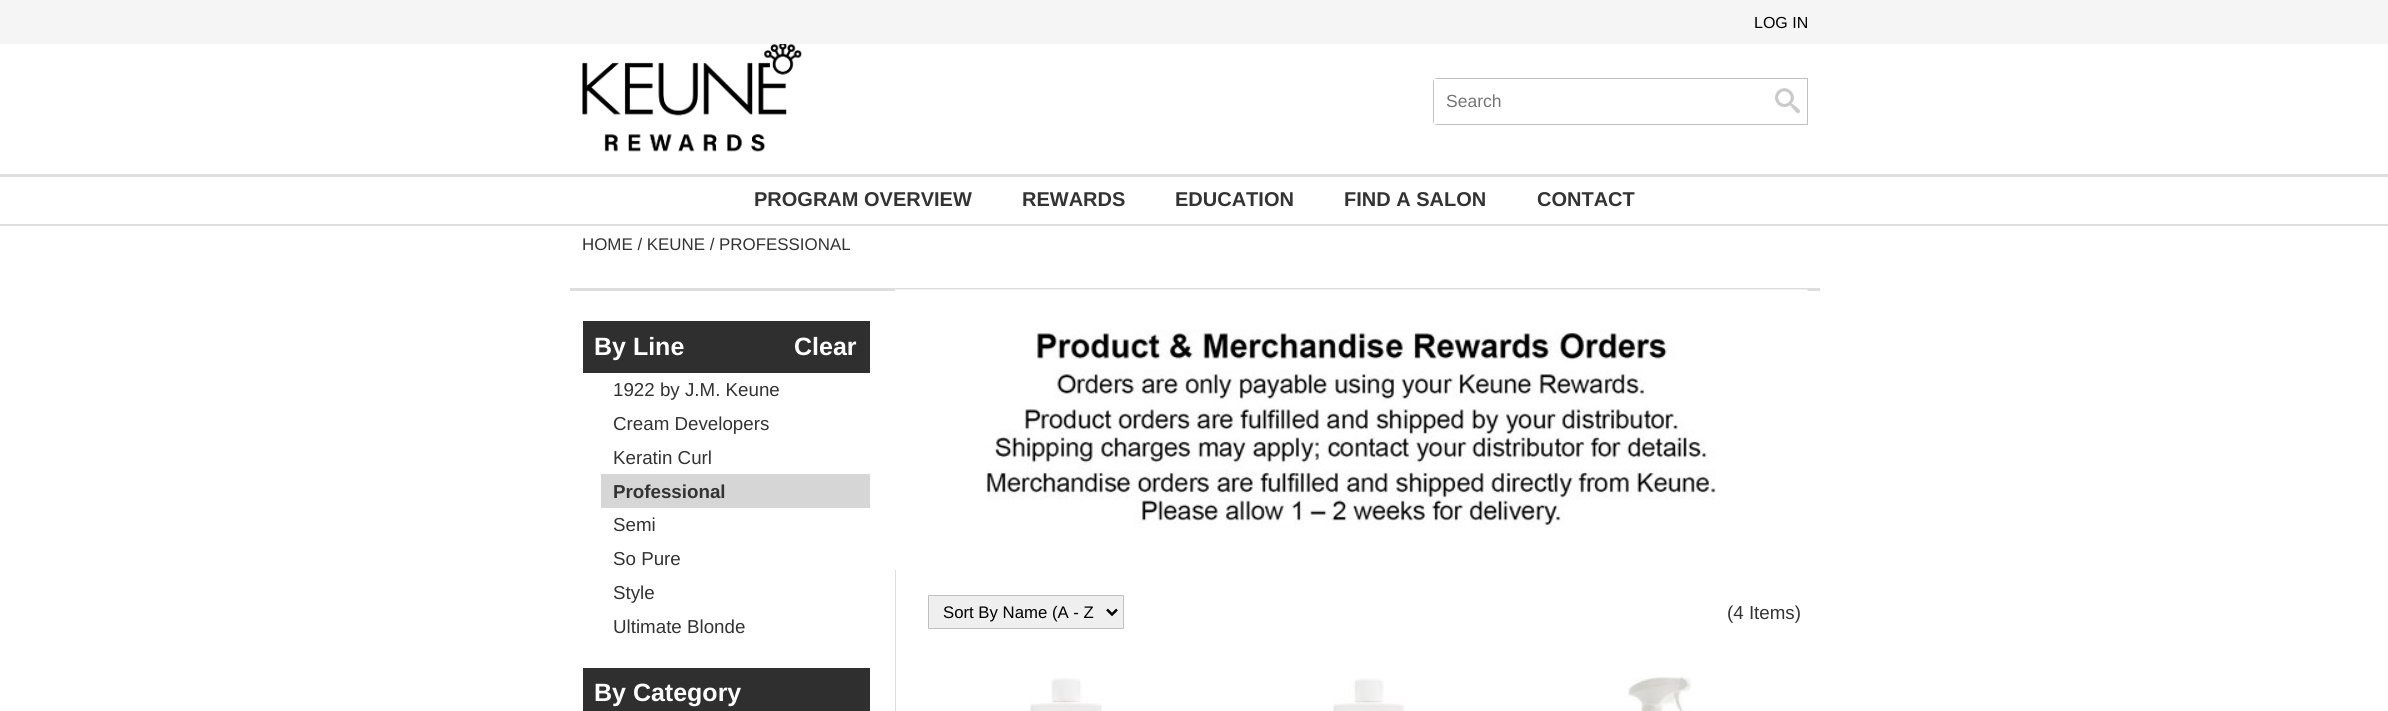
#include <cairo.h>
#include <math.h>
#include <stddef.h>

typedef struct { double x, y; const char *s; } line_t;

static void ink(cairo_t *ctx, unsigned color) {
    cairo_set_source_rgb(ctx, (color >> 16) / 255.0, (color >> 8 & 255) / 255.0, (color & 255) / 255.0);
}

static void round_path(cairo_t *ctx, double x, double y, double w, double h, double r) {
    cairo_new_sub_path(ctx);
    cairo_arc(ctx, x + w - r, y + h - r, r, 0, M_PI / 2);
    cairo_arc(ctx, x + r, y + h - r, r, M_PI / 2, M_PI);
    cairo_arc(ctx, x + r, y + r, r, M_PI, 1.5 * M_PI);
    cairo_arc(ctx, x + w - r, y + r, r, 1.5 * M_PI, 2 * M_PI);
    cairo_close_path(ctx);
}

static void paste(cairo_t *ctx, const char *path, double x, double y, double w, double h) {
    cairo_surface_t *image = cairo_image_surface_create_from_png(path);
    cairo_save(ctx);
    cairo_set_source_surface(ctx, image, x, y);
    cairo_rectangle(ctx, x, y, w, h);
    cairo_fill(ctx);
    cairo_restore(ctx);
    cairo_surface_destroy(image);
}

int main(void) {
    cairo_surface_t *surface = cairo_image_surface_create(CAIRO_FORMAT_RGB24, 2388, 711);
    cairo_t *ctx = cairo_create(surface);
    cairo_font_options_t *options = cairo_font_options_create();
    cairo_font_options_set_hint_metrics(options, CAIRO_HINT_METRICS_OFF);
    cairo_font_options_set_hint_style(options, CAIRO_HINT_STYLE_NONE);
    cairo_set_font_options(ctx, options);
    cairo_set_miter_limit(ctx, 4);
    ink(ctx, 0xFFFFFF);
    cairo_paint(ctx);
    ink(ctx, 0xF5F5F5);
    cairo_rectangle(ctx, 0, 0, 2388, 44);
    cairo_fill(ctx);
    cairo_select_font_face(ctx, "Liberation Sans", CAIRO_FONT_SLANT_NORMAL, CAIRO_FONT_WEIGHT_NORMAL);
    cairo_set_font_size(ctx, 16);
    ink(ctx, 0x000000);
    cairo_move_to(ctx, 1754, 28);
    cairo_show_text(ctx, "LOG IN");
    paste(ctx, "media/1.png", 582, 44, 220, 108);
    cairo_new_path(ctx);
    cairo_move_to(ctx, 1437, 78.5);
    cairo_line_to(ctx, 1807.5, 78.5);
    cairo_line_to(ctx, 1807.5, 124.5);
    cairo_line_to(ctx, 1437, 124.5);
    cairo_curve_to(ctx, 1435, 124.5, 1433.5, 123, 1433.5, 121);
    cairo_line_to(ctx, 1433.5, 82);
    cairo_curve_to(ctx, 1433.5, 80, 1435, 78.5, 1437, 78.5);
    cairo_close_path(ctx);
    ink(ctx, 0xC0C0C0);
    cairo_set_line_width(ctx, 1);
    cairo_stroke(ctx);
    ink(ctx, 0xFFFFFF);
    cairo_rectangle(ctx, 1434, 79, 3, 45);
    cairo_fill(ctx);
    cairo_set_font_size(ctx, 17.5);
    ink(ctx, 0x757575);
    cairo_move_to(ctx, 1446, 107);
    cairo_show_text(ctx, "Search");
    paste(ctx, "media/2.png", 1775, 88, 25, 26);
    ink(ctx, 0xDEDEDE);
    cairo_rectangle(ctx, 0, 174, 2388, 3);
    cairo_fill(ctx);
    cairo_rectangle(ctx, 0, 224, 2388, 2);
    cairo_fill(ctx);
    cairo_select_font_face(ctx, "Liberation Sans", CAIRO_FONT_SLANT_NORMAL, CAIRO_FONT_WEIGHT_BOLD);
    cairo_set_font_size(ctx, 20);
    ink(ctx, 0x333333);
    {
        static const line_t items[] = {
            {754, 206, "PROGRAM OVERVIEW"},
            {1022, 206, "REWARDS"},
            {1175, 206, "EDUCATION"},
            {1344, 206, "FIND A SALON"},
            {1537, 206, "CONTACT"},
        };
        for (size_t i = 0; i < sizeof items / sizeof *items; i++) {
            cairo_move_to(ctx, items[i].x, items[i].y);
            cairo_show_text(ctx, items[i].s);
        }
    }
    cairo_select_font_face(ctx, "Liberation Sans", CAIRO_FONT_SLANT_NORMAL, CAIRO_FONT_WEIGHT_NORMAL);
    cairo_set_font_size(ctx, 16.9);
    cairo_move_to(ctx, 582, 250);
    cairo_show_text(ctx, "HOME / KEUNE / PROFESSIONAL");
    ink(ctx, 0xDEDEDE);
    cairo_rectangle(ctx, 570, 288, 1250, 3);
    cairo_fill(ctx);
    ink(ctx, 0x2F2F2F);
    cairo_rectangle(ctx, 583, 321, 287, 52);
    cairo_fill(ctx);
    cairo_select_font_face(ctx, "Liberation Sans", CAIRO_FONT_SLANT_NORMAL, CAIRO_FONT_WEIGHT_BOLD);
    cairo_set_font_size(ctx, 25);
    ink(ctx, 0xFFFFFF);
    cairo_move_to(ctx, 594, 355);
    cairo_show_text(ctx, "By Line");
    cairo_move_to(ctx, 794, 355);
    cairo_show_text(ctx, "Clear");
    cairo_select_font_face(ctx, "Liberation Sans", CAIRO_FONT_SLANT_NORMAL, CAIRO_FONT_WEIGHT_NORMAL);
    cairo_set_font_size(ctx, 18.75);
    ink(ctx, 0x333333);
    {
        static const line_t items[] = {
            {613, 396, "1922 by J.M. Keune"},
            {613, 430, "Cream Developers"},
            {613, 464, "Keratin Curl"},
        };
        for (size_t i = 0; i < sizeof items / sizeof *items; i++) {
            cairo_move_to(ctx, items[i].x, items[i].y);
            cairo_show_text(ctx, items[i].s);
        }
    }
    ink(ctx, 0xD6D6D6);
    cairo_rectangle(ctx, 601, 474, 269, 34);
    cairo_fill(ctx);
    cairo_select_font_face(ctx, "Liberation Sans", CAIRO_FONT_SLANT_NORMAL, CAIRO_FONT_WEIGHT_BOLD);
    ink(ctx, 0x333333);
    cairo_move_to(ctx, 613, 498);
    cairo_show_text(ctx, "Professional");
    cairo_select_font_face(ctx, "Liberation Sans", CAIRO_FONT_SLANT_NORMAL, CAIRO_FONT_WEIGHT_NORMAL);
    {
        static const line_t items[] = {
            {613, 531, "Semi"},
            {613, 565, "So Pure"},
            {613, 599, "Style"},
            {613, 633, "Ultimate Blonde"},
        };
        for (size_t i = 0; i < sizeof items / sizeof *items; i++) {
            cairo_move_to(ctx, items[i].x, items[i].y);
            cairo_show_text(ctx, items[i].s);
        }
    }
    ink(ctx, 0x2F2F2F);
    cairo_rectangle(ctx, 583, 668, 287, 43);
    cairo_fill(ctx);
    cairo_select_font_face(ctx, "Liberation Sans", CAIRO_FONT_SLANT_NORMAL, CAIRO_FONT_WEIGHT_BOLD);
    cairo_set_font_size(ctx, 25);
    ink(ctx, 0xFFFFFF);
    cairo_move_to(ctx, 594, 701);
    cairo_show_text(ctx, "By Category");
    paste(ctx, "media/3.png", 895, 289, 913, 239);
    ink(ctx, 0xDEDEDE);
    cairo_rectangle(ctx, 895, 570, 1, 141);
    cairo_fill(ctx);
    ink(ctx, 0xEFEFEF);
    round_path(ctx, 928.5, 595.5, 195, 33, 0.5);
    cairo_fill_preserve(ctx);
    ink(ctx, 0xC0C0C0);
    cairo_stroke(ctx);
    cairo_new_path(ctx);
    cairo_move_to(ctx, 1107, 609.5);
    cairo_line_to(ctx, 1112, 614.5);
    cairo_line_to(ctx, 1117, 609.5);
    ink(ctx, 0x000000);
    cairo_set_line_width(ctx, 2.5);
    cairo_stroke(ctx);
    cairo_select_font_face(ctx, "Liberation Sans", CAIRO_FONT_SLANT_NORMAL, CAIRO_FONT_WEIGHT_NORMAL);
    cairo_set_font_size(ctx, 16.75);
    cairo_move_to(ctx, 943, 618);
    cairo_show_text(ctx, "Sort By Name (A - Z");
    cairo_set_font_size(ctx, 18.75);
    ink(ctx, 0x333333);
    cairo_move_to(ctx, 1727, 619);
    cairo_show_text(ctx, "(4 Items)");
    paste(ctx, "media/4.png", 1030, 678, 72, 33);
    paste(ctx, "media/5.png", 1333, 678, 72, 33);
    paste(ctx, "media/6.png", 1624, 677, 67, 34);
    cairo_surface_write_to_png(surface, "image.png");
    cairo_font_options_destroy(options);
    cairo_destroy(ctx);
    cairo_surface_destroy(surface);
    return 0;
}
